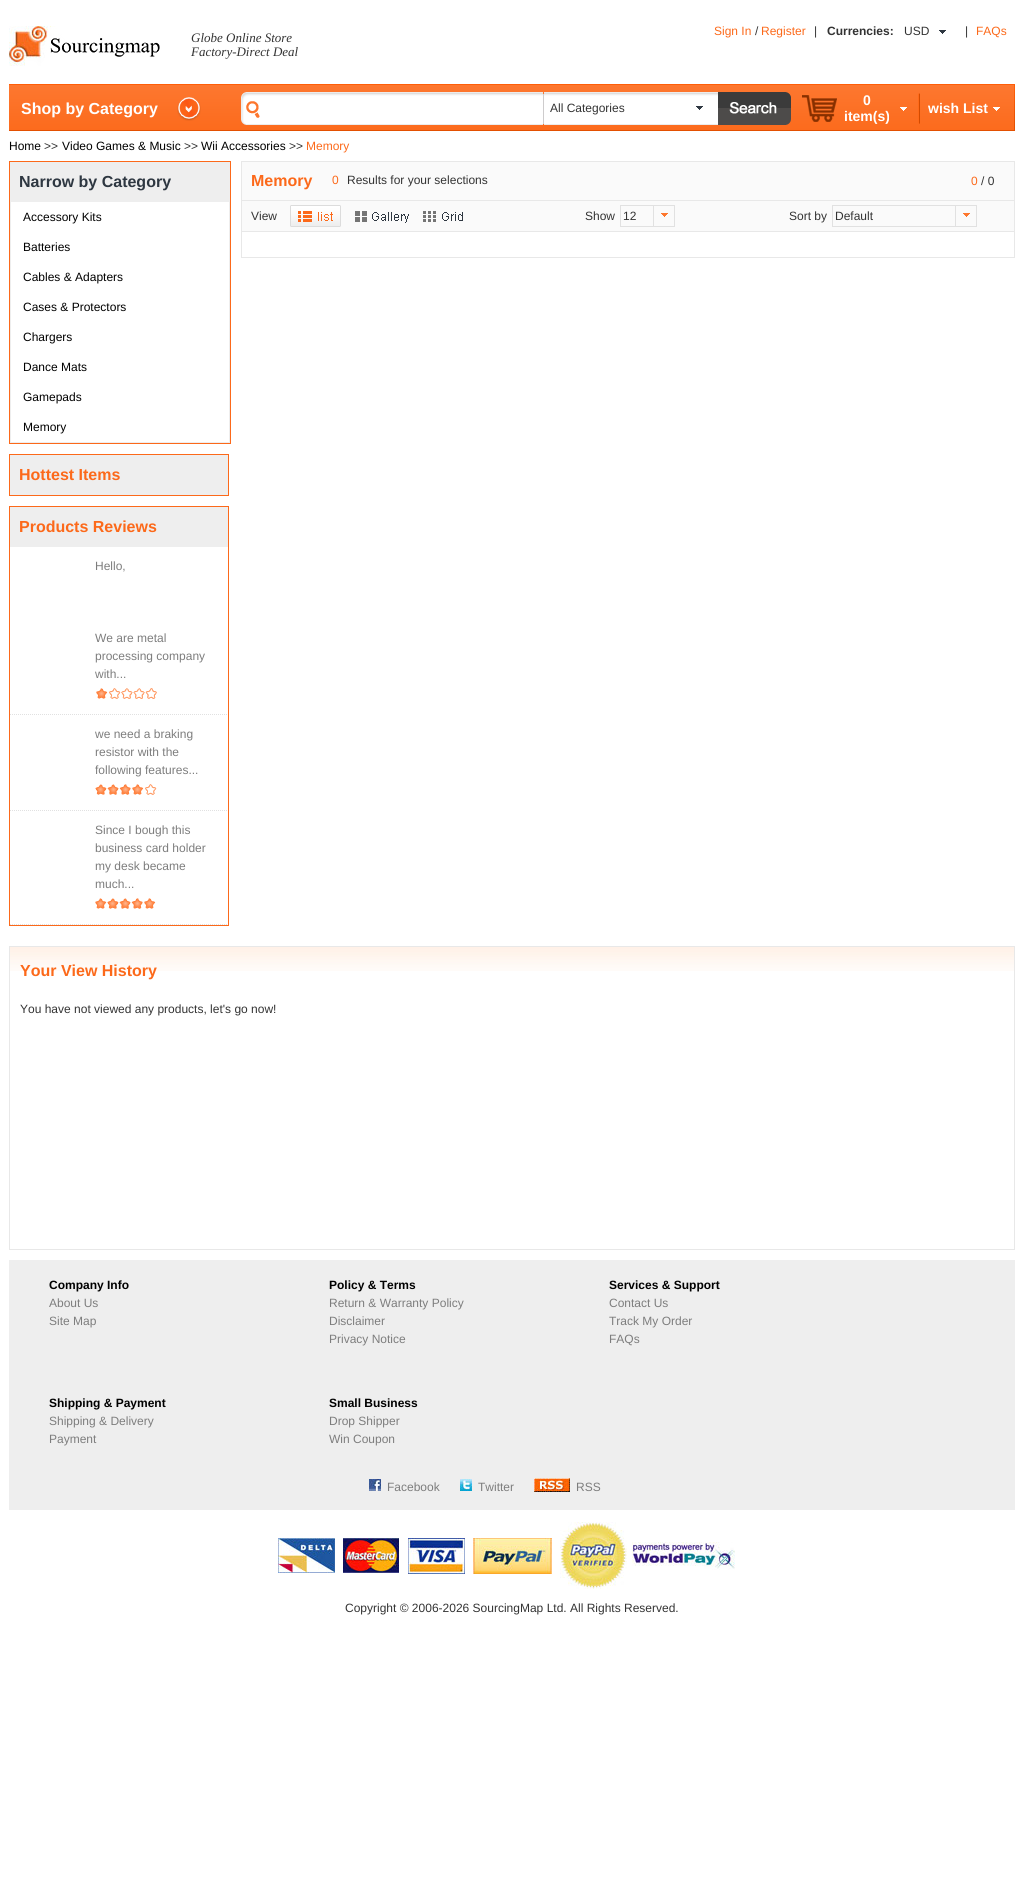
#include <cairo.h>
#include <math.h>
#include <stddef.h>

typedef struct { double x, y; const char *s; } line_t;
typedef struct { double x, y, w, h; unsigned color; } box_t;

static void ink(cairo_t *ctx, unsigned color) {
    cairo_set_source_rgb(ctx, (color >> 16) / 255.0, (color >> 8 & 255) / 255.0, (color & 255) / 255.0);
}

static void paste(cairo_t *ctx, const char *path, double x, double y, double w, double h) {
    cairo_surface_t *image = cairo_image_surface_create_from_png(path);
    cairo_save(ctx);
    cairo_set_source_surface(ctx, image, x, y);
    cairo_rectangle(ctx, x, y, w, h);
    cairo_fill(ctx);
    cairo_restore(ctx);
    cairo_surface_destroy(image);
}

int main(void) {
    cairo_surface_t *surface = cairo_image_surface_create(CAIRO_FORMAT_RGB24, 1024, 1900);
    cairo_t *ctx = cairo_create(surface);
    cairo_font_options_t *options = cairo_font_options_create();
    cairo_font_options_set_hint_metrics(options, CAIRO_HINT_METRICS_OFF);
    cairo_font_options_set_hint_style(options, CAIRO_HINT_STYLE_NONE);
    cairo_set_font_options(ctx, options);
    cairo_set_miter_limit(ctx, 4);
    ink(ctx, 0xFFFFFF);
    cairo_paint(ctx);
    paste(ctx, "media/1.png", 9, 26, 151, 40);
    cairo_select_font_face(ctx, "Liberation Serif", CAIRO_FONT_SLANT_ITALIC, CAIRO_FONT_WEIGHT_NORMAL);
    cairo_set_font_size(ctx, 13);
    ink(ctx, 0x333333);
    cairo_move_to(ctx, 191, 42);
    cairo_show_text(ctx, "Globe Online Store");
    cairo_move_to(ctx, 191, 56);
    cairo_show_text(ctx, "Factory-Direct Deal");
    cairo_select_font_face(ctx, "Liberation Sans", CAIRO_FONT_SLANT_NORMAL, CAIRO_FONT_WEIGHT_NORMAL);
    cairo_set_font_size(ctx, 12);
    ink(ctx, 0xFC691A);
    cairo_move_to(ctx, 714, 35);
    cairo_show_text(ctx, "Sign In");
    ink(ctx, 0x333333);
    cairo_move_to(ctx, 755, 35);
    cairo_show_text(ctx, "/");
    ink(ctx, 0xFC691A);
    cairo_move_to(ctx, 761, 35);
    cairo_show_text(ctx, "Register");
    ink(ctx, 0x333333);
    cairo_move_to(ctx, 814, 35);
    cairo_show_text(ctx, "|");
    cairo_select_font_face(ctx, "Liberation Sans", CAIRO_FONT_SLANT_NORMAL, CAIRO_FONT_WEIGHT_BOLD);
    cairo_move_to(ctx, 827, 35);
    cairo_show_text(ctx, "Currencies:");
    cairo_select_font_face(ctx, "Liberation Sans", CAIRO_FONT_SLANT_NORMAL, CAIRO_FONT_WEIGHT_NORMAL);
    cairo_move_to(ctx, 904, 35);
    cairo_show_text(ctx, "USD");
    paste(ctx, "media/2.png", 939, 30, 7, 4);
    cairo_move_to(ctx, 965, 35);
    cairo_show_text(ctx, "|");
    ink(ctx, 0xFC691A);
    cairo_move_to(ctx, 976, 35);
    cairo_show_text(ctx, "FAQs");
    paste(ctx, "media/3.png", 9, 84, 220, 47);
    paste(ctx, "media/4.png", 177, 97, 24, 24);
    cairo_select_font_face(ctx, "Liberation Sans", CAIRO_FONT_SLANT_NORMAL, CAIRO_FONT_WEIGHT_BOLD);
    cairo_set_font_size(ctx, 16);
    ink(ctx, 0xFFFFFF);
    cairo_move_to(ctx, 21, 114);
    cairo_show_text(ctx, "Shop by Category");
    paste(ctx, "media/5.png", 229, 84, 568, 47);
    paste(ctx, "media/6.png", 241, 92, 21, 33);
    paste(ctx, "media/7.png", 262, 92, 281, 33);
    ink(ctx, 0xCECCCD);
    cairo_rectangle(ctx, 543, 94, 1, 30);
    cairo_fill(ctx);
    paste(ctx, "media/8.png", 544, 92, 142, 33);
    cairo_select_font_face(ctx, "Liberation Sans", CAIRO_FONT_SLANT_NORMAL, CAIRO_FONT_WEIGHT_NORMAL);
    cairo_set_font_size(ctx, 12);
    ink(ctx, 0x333333);
    cairo_move_to(ctx, 550, 112);
    cairo_show_text(ctx, "All Categories");
    paste(ctx, "media/9.png", 686, 92, 32, 33);
    paste(ctx, "media/2.png", 696, 106, 7, 4);
    paste(ctx, "media/10.png", 718, 92, 73, 33);
    paste(ctx, "media/11.png", 797, 84, 218, 47);
    paste(ctx, "media/12.png", 802, 95, 35, 27);
    cairo_select_font_face(ctx, "Liberation Sans", CAIRO_FONT_SLANT_NORMAL, CAIRO_FONT_WEIGHT_BOLD);
    cairo_set_font_size(ctx, 14);
    ink(ctx, 0xFFFFFF);
    cairo_move_to(ctx, 863, 105);
    cairo_show_text(ctx, "0");
    cairo_move_to(ctx, 844, 121);
    cairo_show_text(ctx, "item(s)");
    paste(ctx, "media/13.png", 900, 107, 7, 4);
    paste(ctx, "media/14.png", 918, 93, 2, 31);
    cairo_move_to(ctx, 928, 113);
    cairo_show_text(ctx, "wish List");
    paste(ctx, "media/13.png", 993, 107, 7, 4);
    paste(ctx, "media/15.png", 1014, 85, 1, 45);
    cairo_select_font_face(ctx, "Liberation Sans", CAIRO_FONT_SLANT_NORMAL, CAIRO_FONT_WEIGHT_NORMAL);
    cairo_set_font_size(ctx, 12);
    ink(ctx, 0x000000);
    cairo_move_to(ctx, 9, 150);
    cairo_show_text(ctx, "Home");
    ink(ctx, 0x333333);
    cairo_move_to(ctx, 44, 150);
    cairo_show_text(ctx, ">>");
    ink(ctx, 0x000000);
    cairo_move_to(ctx, 62, 150);
    cairo_show_text(ctx, "Video Games & Music");
    ink(ctx, 0x333333);
    cairo_move_to(ctx, 184, 150);
    cairo_show_text(ctx, ">>");
    ink(ctx, 0x000000);
    cairo_move_to(ctx, 201, 150);
    cairo_show_text(ctx, "Wii Accessories");
    ink(ctx, 0x333333);
    cairo_move_to(ctx, 289, 150);
    cairo_show_text(ctx, ">>");
    ink(ctx, 0xFC691A);
    cairo_move_to(ctx, 306, 150);
    cairo_show_text(ctx, "Memory");
    cairo_rectangle(ctx, 9.5, 161.5, 221, 282);
    cairo_set_line_width(ctx, 1);
    cairo_stroke(ctx);
    ink(ctx, 0xEEEEEE);
    cairo_rectangle(ctx, 10, 162, 220, 40);
    cairo_fill(ctx);
    cairo_select_font_face(ctx, "Liberation Sans", CAIRO_FONT_SLANT_NORMAL, CAIRO_FONT_WEIGHT_BOLD);
    cairo_set_font_size(ctx, 16);
    ink(ctx, 0x2E3741);
    cairo_move_to(ctx, 19, 187);
    cairo_show_text(ctx, "Narrow by Category");
    {
        static const box_t items[] = {
            {229, 202, 1, 241, 0xEEEEEE},
            {10, 442, 220, 1, 0xEEEEEE},
            {10, 202, 1, 241, 0xEEEEEE},
        };
        for (size_t i = 0; i < sizeof items / sizeof *items; i++) {
            ink(ctx, items[i].color);
            cairo_rectangle(ctx, items[i].x, items[i].y, items[i].w, items[i].h);
            cairo_fill(ctx);
        }
    }
    cairo_select_font_face(ctx, "Liberation Sans", CAIRO_FONT_SLANT_NORMAL, CAIRO_FONT_WEIGHT_NORMAL);
    cairo_set_font_size(ctx, 12);
    ink(ctx, 0x000000);
    {
        static const line_t items[] = {
            {23, 221, "Accessory Kits"},
            {23, 251, "Batteries"},
            {23, 281, "Cables & Adapters"},
            {23, 311, "Cases & Protectors"},
            {23, 341, "Chargers"},
            {23, 371, "Dance Mats"},
            {23, 401, "Gamepads"},
            {23, 431, "Memory"},
        };
        for (size_t i = 0; i < sizeof items / sizeof *items; i++) {
            cairo_move_to(ctx, items[i].x, items[i].y);
            cairo_show_text(ctx, items[i].s);
        }
    }
    cairo_rectangle(ctx, 9.5, 454.5, 219, 41);
    ink(ctx, 0xFC691A);
    cairo_stroke(ctx);
    ink(ctx, 0xEEEEEE);
    cairo_rectangle(ctx, 10, 455, 218, 40);
    cairo_fill(ctx);
    cairo_select_font_face(ctx, "Liberation Sans", CAIRO_FONT_SLANT_NORMAL, CAIRO_FONT_WEIGHT_BOLD);
    cairo_set_font_size(ctx, 16);
    ink(ctx, 0xFC691A);
    cairo_move_to(ctx, 19, 480);
    cairo_show_text(ctx, "Hottest Items");
    cairo_rectangle(ctx, 9.5, 506.5, 219, 419);
    cairo_stroke(ctx);
    ink(ctx, 0xEEEEEE);
    cairo_rectangle(ctx, 10, 507, 218, 40);
    cairo_fill(ctx);
    ink(ctx, 0xFC691A);
    cairo_move_to(ctx, 19, 532);
    cairo_show_text(ctx, "Products Reviews");
    cairo_new_path(ctx);
    cairo_move_to(ctx, 10, 714.5);
    cairo_line_to(ctx, 228, 714.5);
    ink(ctx, 0xE1E1E1);
    cairo_set_dash(ctx, (double[]){1, 1}, 2, 0);
    cairo_stroke(ctx);
    cairo_select_font_face(ctx, "Liberation Sans", CAIRO_FONT_SLANT_NORMAL, CAIRO_FONT_WEIGHT_NORMAL);
    cairo_set_font_size(ctx, 12);
    ink(ctx, 0x7D7D7D);
    {
        static const line_t items[] = {
            {95, 570, "Hello,"},
            {95, 642, "We are metal"},
            {95, 660, "processing company"},
            {95, 678, "with..."},
        };
        for (size_t i = 0; i < sizeof items / sizeof *items; i++) {
            cairo_move_to(ctx, items[i].x, items[i].y);
            cairo_show_text(ctx, items[i].s);
        }
    }
    paste(ctx, "media/16.png", 96, 688, 61, 11);
    cairo_new_path(ctx);
    cairo_move_to(ctx, 10, 810.5);
    cairo_line_to(ctx, 228, 810.5);
    ink(ctx, 0xE1E1E1);
    cairo_stroke(ctx);
    ink(ctx, 0x7D7D7D);
    {
        static const line_t items[] = {
            {95, 738, "we need a braking"},
            {95, 756, "resistor with the"},
            {95, 774, "following features..."},
        };
        for (size_t i = 0; i < sizeof items / sizeof *items; i++) {
            cairo_move_to(ctx, items[i].x, items[i].y);
            cairo_show_text(ctx, items[i].s);
        }
    }
    paste(ctx, "media/17.png", 95, 784, 62, 11);
    cairo_new_path(ctx);
    cairo_move_to(ctx, 10, 924.5);
    cairo_line_to(ctx, 228, 924.5);
    ink(ctx, 0xE1E1E1);
    cairo_stroke(ctx);
    ink(ctx, 0x7D7D7D);
    {
        static const line_t items[] = {
            {95, 834, "Since I bough this"},
            {95, 852, "business card holder"},
            {95, 870, "my desk became"},
            {95, 888, "much..."},
        };
        for (size_t i = 0; i < sizeof items / sizeof *items; i++) {
            cairo_move_to(ctx, items[i].x, items[i].y);
            cairo_show_text(ctx, items[i].s);
        }
    }
    paste(ctx, "media/18.png", 95, 898, 61, 11);
    ink(ctx, 0xFAFAFA);
    cairo_rectangle(ctx, 241.5, 161.5, 773, 70);
    cairo_fill_preserve(ctx);
    ink(ctx, 0xE8E8E8);
    cairo_set_dash(ctx, NULL, 0, 0);
    cairo_stroke(ctx);
    cairo_select_font_face(ctx, "Liberation Sans", CAIRO_FONT_SLANT_NORMAL, CAIRO_FONT_WEIGHT_BOLD);
    cairo_set_font_size(ctx, 16);
    ink(ctx, 0xFC691A);
    cairo_move_to(ctx, 251, 186);
    cairo_show_text(ctx, "Memory");
    cairo_select_font_face(ctx, "Liberation Sans", CAIRO_FONT_SLANT_NORMAL, CAIRO_FONT_WEIGHT_NORMAL);
    cairo_set_font_size(ctx, 12);
    cairo_move_to(ctx, 332, 184);
    cairo_show_text(ctx, "0");
    ink(ctx, 0x333333);
    cairo_move_to(ctx, 347, 184);
    cairo_show_text(ctx, "Results for your selections");
    ink(ctx, 0xFC691A);
    cairo_move_to(ctx, 971, 185);
    cairo_show_text(ctx, "0");
    ink(ctx, 0x333333);
    cairo_move_to(ctx, 981, 185);
    cairo_show_text(ctx, "/ 0");
    ink(ctx, 0xE8E8E8);
    cairo_rectangle(ctx, 242, 200, 772, 1);
    cairo_fill(ctx);
    ink(ctx, 0x333333);
    cairo_move_to(ctx, 251, 220);
    cairo_show_text(ctx, "View");
    paste(ctx, "media/19.png", 290, 205, 51, 22);
    paste(ctx, "media/20.png", 355, 211, 54, 12);
    paste(ctx, "media/21.png", 423, 211, 40, 11);
    cairo_move_to(ctx, 585, 220);
    cairo_show_text(ctx, "Show");
    cairo_rectangle(ctx, 620.5, 205.5, 33, 21);
    ink(ctx, 0xE1E1E1);
    cairo_stroke(ctx);
    ink(ctx, 0x333333);
    cairo_move_to(ctx, 623, 220);
    cairo_show_text(ctx, "12");
    {
        static const box_t items[] = {
            {654, 205, 21, 1, 0xE1E1E1},
            {674, 205, 1, 22, 0xE1E1E1},
            {654, 226, 21, 1, 0xE1E1E1},
        };
        for (size_t i = 0; i < sizeof items / sizeof *items; i++) {
            ink(ctx, items[i].color);
            cairo_rectangle(ctx, items[i].x, items[i].y, items[i].w, items[i].h);
            cairo_fill(ctx);
        }
    }
    paste(ctx, "media/22.png", 661, 213, 7, 4);
    ink(ctx, 0x333333);
    cairo_move_to(ctx, 789, 220);
    cairo_show_text(ctx, "Sort by");
    cairo_rectangle(ctx, 832.5, 205.5, 123, 21);
    ink(ctx, 0xE1E1E1);
    cairo_stroke(ctx);
    ink(ctx, 0x333333);
    cairo_move_to(ctx, 835, 220);
    cairo_show_text(ctx, "Default");
    {
        static const box_t items[] = {
            {956, 205, 21, 1, 0xE1E1E1},
            {976, 205, 1, 22, 0xE1E1E1},
            {956, 226, 21, 1, 0xE1E1E1},
        };
        for (size_t i = 0; i < sizeof items / sizeof *items; i++) {
            ink(ctx, items[i].color);
            cairo_rectangle(ctx, items[i].x, items[i].y, items[i].w, items[i].h);
            cairo_fill(ctx);
        }
    }
    paste(ctx, "media/22.png", 963, 213, 7, 4);
    {
        static const box_t items[] = {
            {1014, 232, 1, 26, 0xE8E8E8},
            {241, 257, 774, 1, 0xE8E8E8},
            {241, 232, 1, 26, 0xE8E8E8},
        };
        for (size_t i = 0; i < sizeof items / sizeof *items; i++) {
            ink(ctx, items[i].color);
            cairo_rectangle(ctx, items[i].x, items[i].y, items[i].w, items[i].h);
            cairo_fill(ctx);
        }
    }
    paste(ctx, "media/23.png", 10, 947, 1004, 24);
    cairo_rectangle(ctx, 9.5, 946.5, 1005, 303);
    cairo_stroke(ctx);
    cairo_select_font_face(ctx, "Liberation Sans", CAIRO_FONT_SLANT_NORMAL, CAIRO_FONT_WEIGHT_BOLD);
    cairo_set_font_size(ctx, 16);
    ink(ctx, 0xFC691A);
    cairo_move_to(ctx, 20, 976);
    cairo_show_text(ctx, "Your View History");
    cairo_select_font_face(ctx, "Liberation Sans", CAIRO_FONT_SLANT_NORMAL, CAIRO_FONT_WEIGHT_NORMAL);
    cairo_set_font_size(ctx, 12);
    ink(ctx, 0x333333);
    cairo_move_to(ctx, 20, 1013);
    cairo_show_text(ctx, "You have not viewed any products, let's go now!");
    ink(ctx, 0xEEEEEE);
    cairo_rectangle(ctx, 9, 1260, 1006, 250);
    cairo_fill(ctx);
    cairo_select_font_face(ctx, "Liberation Sans", CAIRO_FONT_SLANT_NORMAL, CAIRO_FONT_WEIGHT_BOLD);
    ink(ctx, 0x000000);
    cairo_move_to(ctx, 49, 1289);
    cairo_show_text(ctx, "Company Info");
    cairo_select_font_face(ctx, "Liberation Sans", CAIRO_FONT_SLANT_NORMAL, CAIRO_FONT_WEIGHT_NORMAL);
    ink(ctx, 0x7D7D7D);
    cairo_move_to(ctx, 49, 1307);
    cairo_show_text(ctx, "About Us");
    cairo_move_to(ctx, 49, 1325);
    cairo_show_text(ctx, "Site Map");
    cairo_select_font_face(ctx, "Liberation Sans", CAIRO_FONT_SLANT_NORMAL, CAIRO_FONT_WEIGHT_BOLD);
    ink(ctx, 0x000000);
    cairo_move_to(ctx, 329, 1289);
    cairo_show_text(ctx, "Policy & Terms");
    cairo_select_font_face(ctx, "Liberation Sans", CAIRO_FONT_SLANT_NORMAL, CAIRO_FONT_WEIGHT_NORMAL);
    ink(ctx, 0x7D7D7D);
    {
        static const line_t items[] = {
            {329, 1307, "Return & Warranty Policy"},
            {329, 1325, "Disclaimer"},
            {329, 1343, "Privacy Notice"},
        };
        for (size_t i = 0; i < sizeof items / sizeof *items; i++) {
            cairo_move_to(ctx, items[i].x, items[i].y);
            cairo_show_text(ctx, items[i].s);
        }
    }
    cairo_select_font_face(ctx, "Liberation Sans", CAIRO_FONT_SLANT_NORMAL, CAIRO_FONT_WEIGHT_BOLD);
    ink(ctx, 0x000000);
    cairo_move_to(ctx, 609, 1289);
    cairo_show_text(ctx, "Services & Support");
    cairo_select_font_face(ctx, "Liberation Sans", CAIRO_FONT_SLANT_NORMAL, CAIRO_FONT_WEIGHT_NORMAL);
    ink(ctx, 0x7D7D7D);
    {
        static const line_t items[] = {
            {609, 1307, "Contact Us"},
            {609, 1325, "Track My Order"},
            {609, 1343, "FAQs"},
        };
        for (size_t i = 0; i < sizeof items / sizeof *items; i++) {
            cairo_move_to(ctx, items[i].x, items[i].y);
            cairo_show_text(ctx, items[i].s);
        }
    }
    cairo_select_font_face(ctx, "Liberation Sans", CAIRO_FONT_SLANT_NORMAL, CAIRO_FONT_WEIGHT_BOLD);
    ink(ctx, 0x000000);
    cairo_move_to(ctx, 49, 1407);
    cairo_show_text(ctx, "Shipping & Payment");
    cairo_select_font_face(ctx, "Liberation Sans", CAIRO_FONT_SLANT_NORMAL, CAIRO_FONT_WEIGHT_NORMAL);
    ink(ctx, 0x7D7D7D);
    cairo_move_to(ctx, 49, 1425);
    cairo_show_text(ctx, "Shipping & Delivery");
    cairo_move_to(ctx, 49, 1443);
    cairo_show_text(ctx, "Payment");
    cairo_select_font_face(ctx, "Liberation Sans", CAIRO_FONT_SLANT_NORMAL, CAIRO_FONT_WEIGHT_BOLD);
    ink(ctx, 0x000000);
    cairo_move_to(ctx, 329, 1407);
    cairo_show_text(ctx, "Small Business");
    cairo_select_font_face(ctx, "Liberation Sans", CAIRO_FONT_SLANT_NORMAL, CAIRO_FONT_WEIGHT_NORMAL);
    ink(ctx, 0x7D7D7D);
    cairo_move_to(ctx, 329, 1425);
    cairo_show_text(ctx, "Drop Shipper");
    cairo_move_to(ctx, 329, 1443);
    cairo_show_text(ctx, "Win Coupon");
    paste(ctx, "media/24.png", 369, 1479, 12, 12);
    cairo_move_to(ctx, 387, 1491);
    cairo_show_text(ctx, "Facebook");
    paste(ctx, "media/25.png", 460, 1479, 12, 12);
    cairo_move_to(ctx, 478, 1491);
    cairo_show_text(ctx, "Twitter");
    paste(ctx, "media/26.png", 534, 1478, 36, 14);
    cairo_move_to(ctx, 576, 1491);
    cairo_show_text(ctx, "RSS");
    paste(ctx, "media/27.png", 278, 1538, 57, 35);
    paste(ctx, "media/28.png", 343, 1538, 56, 35);
    paste(ctx, "media/29.png", 408, 1538, 57, 36);
    paste(ctx, "media/30.png", 473, 1538, 79, 36);
    paste(ctx, "media/31.png", 560, 1522, 67, 67);
    paste(ctx, "media/32.png", 632, 1542, 103, 28);
    ink(ctx, 0x333333);
    cairo_move_to(ctx, 345, 1612);
    cairo_show_text(ctx, "Copyright © 2006-2026 SourcingMap Ltd. All Rights Reserved.");
    cairo_surface_write_to_png(surface, "image.png");
    cairo_font_options_destroy(options);
    cairo_destroy(ctx);
    cairo_surface_destroy(surface);
    return 0;
}
